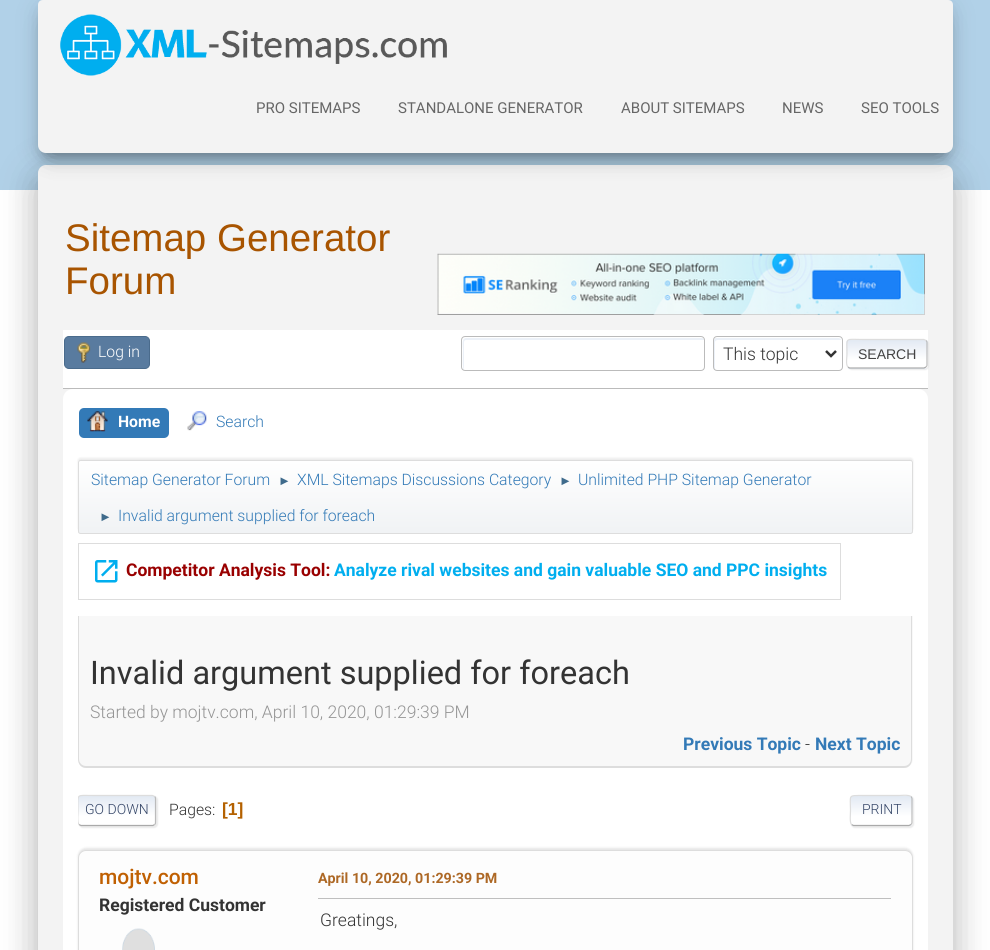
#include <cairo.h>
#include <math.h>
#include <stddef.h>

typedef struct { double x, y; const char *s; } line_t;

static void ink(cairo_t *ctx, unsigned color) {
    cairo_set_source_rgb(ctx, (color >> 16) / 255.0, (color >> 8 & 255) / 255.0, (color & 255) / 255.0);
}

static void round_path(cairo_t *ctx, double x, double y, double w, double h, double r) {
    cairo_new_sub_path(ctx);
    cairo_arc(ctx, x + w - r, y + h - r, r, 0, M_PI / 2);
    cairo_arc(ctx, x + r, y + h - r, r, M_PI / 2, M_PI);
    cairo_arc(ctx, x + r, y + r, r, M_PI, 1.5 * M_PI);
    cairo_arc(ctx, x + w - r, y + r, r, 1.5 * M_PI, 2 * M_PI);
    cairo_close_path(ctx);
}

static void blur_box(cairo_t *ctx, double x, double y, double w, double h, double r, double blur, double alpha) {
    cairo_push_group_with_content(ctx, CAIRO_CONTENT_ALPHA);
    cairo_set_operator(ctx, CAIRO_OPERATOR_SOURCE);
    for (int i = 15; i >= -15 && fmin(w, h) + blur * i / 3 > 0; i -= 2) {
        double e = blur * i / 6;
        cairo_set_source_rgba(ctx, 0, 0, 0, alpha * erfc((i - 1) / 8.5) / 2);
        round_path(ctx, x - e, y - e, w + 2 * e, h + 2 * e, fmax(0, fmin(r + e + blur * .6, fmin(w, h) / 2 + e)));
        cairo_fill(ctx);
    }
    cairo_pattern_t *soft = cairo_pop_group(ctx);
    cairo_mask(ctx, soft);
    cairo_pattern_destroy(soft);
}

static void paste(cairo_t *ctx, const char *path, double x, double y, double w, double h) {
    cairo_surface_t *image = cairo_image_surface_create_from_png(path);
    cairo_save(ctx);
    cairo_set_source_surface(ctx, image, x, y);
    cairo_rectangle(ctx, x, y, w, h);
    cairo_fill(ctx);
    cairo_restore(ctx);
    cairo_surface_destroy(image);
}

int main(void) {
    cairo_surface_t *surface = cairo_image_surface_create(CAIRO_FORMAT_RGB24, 990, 950);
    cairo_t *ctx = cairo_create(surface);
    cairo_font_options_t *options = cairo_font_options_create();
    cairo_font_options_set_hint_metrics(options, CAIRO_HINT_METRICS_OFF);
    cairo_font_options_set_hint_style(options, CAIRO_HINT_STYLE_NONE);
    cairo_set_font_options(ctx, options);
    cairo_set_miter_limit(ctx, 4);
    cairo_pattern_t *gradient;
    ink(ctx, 0xFFFFFF);
    cairo_paint(ctx);
    ink(ctx, 0xB1D1E8);
    cairo_rectangle(ctx, 0, 0, 990, 190);
    cairo_fill(ctx);
    ink(ctx, 0x000000);
    blur_box(ctx, 44, 181, 902, 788, 1, 6, 0.2);
    blur_box(ctx, 31, 166, 928, 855, 14, 19, 0.12);
    blur_box(ctx, 35, 183, 920, 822, 10, 15, 0.14);
    ink(ctx, 0xF3F3F3);
    round_path(ctx, 38, 165, 915, 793, 8);
    cairo_fill(ctx);
    ink(ctx, 0x000000);
    blur_box(ctx, 44, 16, 902, 140, 1, 6, 0.2);
    blur_box(ctx, 38, 4, 915, 152, 8, 12.5, 0.12);
    blur_box(ctx, 53, 28, 885, 122, 0, 12.5, 0.42);
    ink(ctx, 0xF3F3F3);
    cairo_new_path(ctx);
    cairo_move_to(ctx, 43, 0);
    cairo_line_to(ctx, 948, 0);
    cairo_curve_to(ctx, 951, 0, 953, 2, 953, 5);
    cairo_line_to(ctx, 953, 145);
    cairo_curve_to(ctx, 953, 149.5, 949.5, 153, 945, 153);
    cairo_line_to(ctx, 46, 153);
    cairo_curve_to(ctx, 41.5, 153, 38, 149.5, 38, 145);
    cairo_line_to(ctx, 38, 5);
    cairo_curve_to(ctx, 38, 2, 40, 0, 43, 0);
    cairo_close_path(ctx);
    cairo_fill(ctx);
    paste(ctx, "media/1.png", 60, 14, 387, 62);
    cairo_select_font_face(ctx, "Roboto", CAIRO_FONT_SLANT_NORMAL, CAIRO_FONT_WEIGHT_NORMAL);
    cairo_set_font_size(ctx, 15);
    ink(ctx, 0x666666);
    {
        static const line_t items[] = {
            {256, 113, "PRO SITEMAPS"},
            {398, 113, "STANDALONE GENERATOR"},
            {621, 113, "ABOUT SITEMAPS"},
            {782, 113, "NEWS"},
            {861, 113, "SEO TOOLS"},
        };
        for (size_t i = 0; i < sizeof items / sizeof *items; i++) {
            cairo_move_to(ctx, items[i].x, items[i].y);
            cairo_show_text(ctx, items[i].s);
        }
    }
    cairo_select_font_face(ctx, "Liberation Sans", CAIRO_FONT_SLANT_NORMAL, CAIRO_FONT_WEIGHT_NORMAL);
    cairo_set_font_size(ctx, 38.5);
    ink(ctx, 0xA85400);
    cairo_move_to(ctx, 65, 251);
    cairo_show_text(ctx, "Sitemap Generator");
    cairo_move_to(ctx, 65, 294);
    cairo_show_text(ctx, "Forum");
    paste(ctx, "media/2.png", 437, 253, 488, 62);
    ink(ctx, 0xFFFFFF);
    cairo_rectangle(ctx, 63, 330, 865, 58);
    cairo_fill(ctx);
    ink(ctx, 0xBBBBBB);
    cairo_rectangle(ctx, 63, 388, 865, 1);
    cairo_fill(ctx);
    ink(ctx, 0x597B9F);
    round_path(ctx, 64.5, 336.5, 85, 32, 4.5);
    cairo_fill_preserve(ctx);
    ink(ctx, 0x4A6B8C);
    cairo_set_line_width(ctx, 1);
    cairo_stroke(ctx);
    paste(ctx, "media/3.png", 77, 342, 14, 21);
    cairo_select_font_face(ctx, "Roboto Light", CAIRO_FONT_SLANT_NORMAL, CAIRO_FONT_WEIGHT_NORMAL);
    cairo_set_font_size(ctx, 15.75);
    ink(ctx, 0xFFFFFF);
    cairo_move_to(ctx, 98, 357);
    cairo_show_text(ctx, "Log in");
    ink(ctx, 0xECF1F8);
    cairo_new_path(ctx);
    cairo_move_to(ctx, 466, 340);
    cairo_line_to(ctx, 702, 340);
    cairo_line_to(ctx, 704, 340);
    cairo_curve_to(ctx, 704, 339, 703, 338, 702, 338);
    cairo_line_to(ctx, 466, 338);
    cairo_curve_to(ctx, 461, 338, 463, 347, 463, 350);
    cairo_curve_to(ctx, 463, 353, 462, 368, 464, 370);
    cairo_line_to(ctx, 464, 342);
    cairo_curve_to(ctx, 464, 341, 465, 340, 466, 340);
    cairo_close_path(ctx);
    cairo_fill(ctx);
    round_path(ctx, 461.5, 336.5, 243, 34, 3.5);
    ink(ctx, 0xBBBBBB);
    cairo_stroke(ctx);
    ink(ctx, 0xECF1F8);
    cairo_new_path(ctx);
    cairo_move_to(ctx, 718, 340);
    cairo_line_to(ctx, 841, 340);
    cairo_curve_to(ctx, 841, 339, 840, 338, 838, 338);
    cairo_line_to(ctx, 716, 338);
    cairo_curve_to(ctx, 715, 338, 714, 339, 714, 340);
    cairo_line_to(ctx, 714, 368);
    cairo_curve_to(ctx, 714, 368, 714, 369, 715, 370);
    cairo_line_to(ctx, 715, 342);
    cairo_curve_to(ctx, 715, 341, 716, 340, 718, 340);
    cairo_close_path(ctx);
    cairo_fill(ctx);
    round_path(ctx, 713.5, 336.5, 129, 34, 3.5);
    ink(ctx, 0xBBBBBB);
    cairo_stroke(ctx);
    cairo_new_path(ctx);
    cairo_move_to(ctx, 826, 351);
    cairo_line_to(ctx, 831, 356);
    cairo_line_to(ctx, 836, 351);
    ink(ctx, 0x333333);
    cairo_set_line_width(ctx, 2.5);
    cairo_stroke(ctx);
    cairo_set_font_size(ctx, 17.5);
    cairo_move_to(ctx, 723, 360);
    cairo_show_text(ctx, "This topic");
    ink(ctx, 0xDDDDDD);
    blur_box(ctx, 848, 340, 81, 30, 4, 0.5, 0.57);
    ink(ctx, 0xFFFFFF);
    round_path(ctx, 846, 339, 82, 30, 4);
    cairo_fill(ctx);
    cairo_save(ctx);
    round_path(ctx, 846, 339, 82, 30, 4);
    cairo_clip(ctx);
    gradient = cairo_pattern_create_linear(887, 340, 887, 368);
    cairo_pattern_add_color_stop_rgba(gradient, 0, 0.886, 0.914, 0.953, 1);
    cairo_pattern_add_color_stop_rgba(gradient, 0.7, 1, 1, 1, 1);
    cairo_set_source(ctx, gradient);
    cairo_pattern_destroy(gradient);
    cairo_rectangle(ctx, 846, 340, 82, 28);
    cairo_fill(ctx);
    gradient = cairo_pattern_create_linear(887, 368, 887, 395);
    cairo_pattern_add_color_stop_rgba(gradient, 0, 0.886, 0.914, 0.953, 1);
    cairo_pattern_add_color_stop_rgba(gradient, 0.7, 1, 1, 1, 1);
    cairo_set_source(ctx, gradient);
    cairo_pattern_destroy(gradient);
    cairo_rectangle(ctx, 846, 368, 82, 1);
    cairo_fill(ctx);
    cairo_restore(ctx);
    cairo_new_path(ctx);
    cairo_move_to(ctx, 926, 340.5);
    cairo_curve_to(ctx, 926.5, 341, 927, 341.5, 927, 342.5);
    cairo_line_to(ctx, 927, 365);
    cairo_curve_to(ctx, 927, 366, 926.5, 366.5, 926, 367);
    ink(ctx, 0xBBBBBB);
    cairo_set_line_width(ctx, 1.2);
    cairo_stroke(ctx);
    cairo_new_path(ctx);
    cairo_move_to(ctx, 926, 367);
    cairo_line_to(ctx, 924, 368);
    cairo_line_to(ctx, 849.5, 368);
    cairo_line_to(ctx, 848, 367);
    ink(ctx, 0xAAAAAA);
    cairo_stroke(ctx);
    cairo_new_path(ctx);
    cairo_move_to(ctx, 848, 367);
    cairo_curve_to(ctx, 845.5, 365, 847, 356.5, 847, 354);
    cairo_curve_to(ctx, 847, 336.5, 844.5, 339.5, 862.5, 339.5);
    cairo_line_to(ctx, 924, 339.5);
    cairo_line_to(ctx, 926, 340.5);
    ink(ctx, 0xDDDDDD);
    cairo_stroke(ctx);
    cairo_select_font_face(ctx, "Liberation Sans", CAIRO_FONT_SLANT_NORMAL, CAIRO_FONT_WEIGHT_NORMAL);
    cairo_set_font_size(ctx, 14);
    ink(ctx, 0x444444);
    cairo_move_to(ctx, 858, 359);
    cairo_show_text(ctx, "SEARCH");
    ink(ctx, 0xFFFFFF);
    round_path(ctx, 63, 389, 865, 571, 10);
    cairo_fill(ctx);
    ink(ctx, 0x337AB7);
    round_path(ctx, 79, 408, 90, 30, 5);
    cairo_fill(ctx);
    paste(ctx, "media/4.png", 87, 411, 21, 21);
    cairo_select_font_face(ctx, "Roboto", CAIRO_FONT_SLANT_NORMAL, CAIRO_FONT_WEIGHT_BOLD);
    cairo_set_font_size(ctx, 15.75);
    ink(ctx, 0xFFFFFF);
    cairo_move_to(ctx, 118, 427);
    cairo_show_text(ctx, "Home");
    paste(ctx, "media/5.png", 187, 411, 20, 20);
    cairo_select_font_face(ctx, "Roboto Light", CAIRO_FONT_SLANT_NORMAL, CAIRO_FONT_WEIGHT_NORMAL);
    ink(ctx, 0x337AB7);
    cairo_move_to(ctx, 216, 427);
    cairo_show_text(ctx, "Search");
    ink(ctx, 0x000000);
    blur_box(ctx, 78, 458, 835, 73, 2.5, 1, 0.08);
    cairo_save(ctx);
    round_path(ctx, 78, 460, 835, 74, 2.5);
    cairo_clip(ctx);
    gradient = cairo_pattern_create_linear(495, 461, 495, 533);
    cairo_pattern_add_color_stop_rgba(gradient, 0, 1, 1, 1, 1);
    cairo_pattern_add_color_stop_rgba(gradient, 0.95, 0.945, 0.953, 0.961, 1);
    cairo_set_source(ctx, gradient);
    cairo_pattern_destroy(gradient);
    cairo_rectangle(ctx, 78, 461, 835, 72);
    cairo_fill(ctx);
    cairo_restore(ctx);
    round_path(ctx, 78.5, 460.5, 834, 73, 2);
    ink(ctx, 0xDDDDDD);
    cairo_set_line_width(ctx, 1);
    cairo_stroke(ctx);
    ink(ctx, 0x337AB7);
    cairo_move_to(ctx, 91, 485);
    cairo_show_text(ctx, "Sitemap Generator Forum");
    cairo_select_font_face(ctx, "Liberation Sans", CAIRO_FONT_SLANT_NORMAL, CAIRO_FONT_WEIGHT_NORMAL);
    cairo_set_font_size(ctx, 13);
    ink(ctx, 0x3F6B8C);
    cairo_move_to(ctx, 278, 485);
    cairo_show_text(ctx, "►");
    cairo_select_font_face(ctx, "Roboto Light", CAIRO_FONT_SLANT_NORMAL, CAIRO_FONT_WEIGHT_NORMAL);
    cairo_set_font_size(ctx, 15.75);
    ink(ctx, 0x337AB7);
    cairo_move_to(ctx, 297, 485);
    cairo_show_text(ctx, "XML Sitemaps Discussions Category");
    cairo_select_font_face(ctx, "Liberation Sans", CAIRO_FONT_SLANT_NORMAL, CAIRO_FONT_WEIGHT_NORMAL);
    cairo_set_font_size(ctx, 13);
    ink(ctx, 0x3F6B8C);
    cairo_move_to(ctx, 559, 485);
    cairo_show_text(ctx, "►");
    cairo_select_font_face(ctx, "Roboto Light", CAIRO_FONT_SLANT_NORMAL, CAIRO_FONT_WEIGHT_NORMAL);
    cairo_set_font_size(ctx, 15.75);
    ink(ctx, 0x337AB7);
    cairo_move_to(ctx, 578, 485);
    cairo_show_text(ctx, "Unlimited PHP Sitemap Generator");
    cairo_select_font_face(ctx, "Liberation Sans", CAIRO_FONT_SLANT_NORMAL, CAIRO_FONT_WEIGHT_NORMAL);
    cairo_set_font_size(ctx, 13);
    ink(ctx, 0x3F6B8C);
    cairo_move_to(ctx, 99, 521);
    cairo_show_text(ctx, "►");
    cairo_select_font_face(ctx, "Roboto Light", CAIRO_FONT_SLANT_NORMAL, CAIRO_FONT_WEIGHT_NORMAL);
    cairo_set_font_size(ctx, 15.75);
    ink(ctx, 0x337AB7);
    cairo_move_to(ctx, 118, 521);
    cairo_show_text(ctx, "Invalid argument supplied for foreach");
    cairo_rectangle(ctx, 78.5, 543.5, 762, 56);
    ink(ctx, 0xDDDDDD);
    cairo_stroke(ctx);
    paste(ctx, "media/6.png", 95, 560, 23, 23);
    cairo_select_font_face(ctx, "Roboto", CAIRO_FONT_SLANT_NORMAL, CAIRO_FONT_WEIGHT_BOLD);
    cairo_set_font_size(ctx, 17.5);
    ink(ctx, 0x990000);
    cairo_move_to(ctx, 126, 576);
    cairo_show_text(ctx, "Competitor Analysis Tool:");
    ink(ctx, 0x00AEEF);
    cairo_move_to(ctx, 334, 576);
    cairo_show_text(ctx, "Analyze rival websites and gain valuable SEO and PPC insights");
    ink(ctx, 0xF8F8F8);
    cairo_new_path(ctx);
    cairo_move_to(ctx, 78, 616);
    cairo_line_to(ctx, 913, 616);
    cairo_line_to(ctx, 913, 759);
    cairo_curve_to(ctx, 913, 764, 909, 768, 904, 768);
    cairo_line_to(ctx, 87, 768);
    cairo_curve_to(ctx, 82, 768, 78, 764, 78, 759);
    cairo_close_path(ctx);
    cairo_fill(ctx);
    ink(ctx, 0xDDDDDD);
    cairo_set_fill_rule(ctx, CAIRO_FILL_RULE_EVEN_ODD);
    cairo_new_path(ctx);
    cairo_move_to(ctx, 78, 616);
    cairo_line_to(ctx, 912, 616);
    cairo_line_to(ctx, 912, 759);
    cairo_curve_to(ctx, 912, 764, 909, 768, 904, 768);
    cairo_line_to(ctx, 86, 768);
    cairo_curve_to(ctx, 81, 768, 78, 764, 78, 759);
    cairo_close_path(ctx);
    cairo_move_to(ctx, 79, 616);
    cairo_line_to(ctx, 911, 616);
    cairo_line_to(ctx, 911, 759);
    cairo_curve_to(ctx, 911, 763, 908, 766, 904, 766);
    cairo_line_to(ctx, 86, 766);
    cairo_curve_to(ctx, 82, 766, 79, 763, 79, 759);
    cairo_close_path(ctx);
    cairo_fill(ctx);
    cairo_select_font_face(ctx, "Roboto", CAIRO_FONT_SLANT_NORMAL, CAIRO_FONT_WEIGHT_NORMAL);
    cairo_set_font_size(ctx, 32.5);
    ink(ctx, 0x333333);
    cairo_move_to(ctx, 90, 684);
    cairo_show_text(ctx, "Invalid argument supplied for foreach");
    cairo_select_font_face(ctx, "Roboto Light", CAIRO_FONT_SLANT_NORMAL, CAIRO_FONT_WEIGHT_NORMAL);
    cairo_set_font_size(ctx, 17.5);
    ink(ctx, 0x959595);
    cairo_move_to(ctx, 90, 718);
    cairo_show_text(ctx, "Started by mojtv.com, April 10, 2020, 01:29:39 PM");
    cairo_select_font_face(ctx, "Roboto", CAIRO_FONT_SLANT_NORMAL, CAIRO_FONT_WEIGHT_BOLD);
    ink(ctx, 0x337AB7);
    cairo_move_to(ctx, 683, 750);
    cairo_show_text(ctx, "Previous Topic");
    cairo_select_font_face(ctx, "Roboto Light", CAIRO_FONT_SLANT_NORMAL, CAIRO_FONT_WEIGHT_NORMAL);
    ink(ctx, 0x333333);
    cairo_move_to(ctx, 805, 750);
    cairo_show_text(ctx, "-");
    cairo_select_font_face(ctx, "Roboto", CAIRO_FONT_SLANT_NORMAL, CAIRO_FONT_WEIGHT_BOLD);
    ink(ctx, 0x337AB7);
    cairo_move_to(ctx, 815, 750);
    cairo_show_text(ctx, "Next Topic");
    ink(ctx, 0xDDDDDD);
    blur_box(ctx, 79, 796, 79, 32, 4, 0.5, 0.57);
    cairo_save(ctx);
    cairo_set_fill_rule(ctx, CAIRO_FILL_RULE_WINDING);
    round_path(ctx, 78, 795, 78, 31, 4);
    cairo_clip(ctx);
    gradient = cairo_pattern_create_linear(117, 796, 117, 825);
    cairo_pattern_add_color_stop_rgba(gradient, 0, 0.886, 0.914, 0.953, 1);
    cairo_pattern_add_color_stop_rgba(gradient, 0.7, 1, 1, 1, 1);
    cairo_set_source(ctx, gradient);
    cairo_pattern_destroy(gradient);
    cairo_rectangle(ctx, 78, 796, 78, 29);
    cairo_fill(ctx);
    cairo_restore(ctx);
    cairo_new_path(ctx);
    cairo_move_to(ctx, 154.5, 796.5);
    cairo_curve_to(ctx, 155.5, 797, 155.5, 798, 155.5, 799);
    cairo_line_to(ctx, 155.5, 822.5);
    cairo_curve_to(ctx, 155.5, 823.5, 155.5, 824, 154.5, 824.5);
    ink(ctx, 0xBBBBBB);
    cairo_set_line_width(ctx, 1.2);
    cairo_stroke(ctx);
    cairo_new_path(ctx);
    cairo_move_to(ctx, 154.5, 824.5);
    cairo_line_to(ctx, 153, 825.5);
    cairo_line_to(ctx, 81, 825.5);
    cairo_line_to(ctx, 79, 824.5);
    ink(ctx, 0xAAAAAA);
    cairo_stroke(ctx);
    cairo_save(ctx);
    cairo_set_fill_rule(ctx, CAIRO_FILL_RULE_WINDING);
    cairo_rectangle(ctx, 78, 786, 835, 49);
    cairo_clip(ctx);
    cairo_new_path(ctx);
    cairo_move_to(ctx, 79, 824.5);
    cairo_curve_to(ctx, 77, 822.5, 78, 813.5, 78, 810.5);
    cairo_curve_to(ctx, 78, 793, 75.5, 795.5, 93, 795.5);
    cairo_line_to(ctx, 152.5, 795.5);
    cairo_line_to(ctx, 154.5, 796.5);
    ink(ctx, 0xDDDDDD);
    cairo_stroke(ctx);
    cairo_restore(ctx);
    cairo_select_font_face(ctx, "Roboto Light", CAIRO_FONT_SLANT_NORMAL, CAIRO_FONT_WEIGHT_NORMAL);
    cairo_set_font_size(ctx, 14);
    ink(ctx, 0x334466);
    cairo_move_to(ctx, 85, 814);
    cairo_show_text(ctx, "GO DOWN");
    cairo_set_font_size(ctx, 15.75);
    ink(ctx, 0x333333);
    cairo_move_to(ctx, 169, 815);
    cairo_show_text(ctx, "Pages:");
    cairo_select_font_face(ctx, "Liberation Sans", CAIRO_FONT_SLANT_NORMAL, CAIRO_FONT_WEIGHT_BOLD);
    cairo_set_font_size(ctx, 17.5);
    ink(ctx, 0xB46100);
    cairo_move_to(ctx, 222, 815);
    cairo_show_text(ctx, "[1]");
    cairo_save(ctx);
    cairo_new_path(ctx);
    cairo_move_to(ctx, 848, 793);
    cairo_line_to(ctx, 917, 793);
    cairo_line_to(ctx, 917, 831);
    cairo_line_to(ctx, 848, 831);
    cairo_close_path(ctx);
    cairo_move_to(ctx, 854, 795);
    cairo_line_to(ctx, 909, 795);
    cairo_curve_to(ctx, 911, 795, 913, 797, 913, 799);
    cairo_line_to(ctx, 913, 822);
    cairo_curve_to(ctx, 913, 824, 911, 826, 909, 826);
    cairo_line_to(ctx, 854, 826);
    cairo_curve_to(ctx, 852, 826, 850, 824, 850, 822);
    cairo_line_to(ctx, 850, 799);
    cairo_curve_to(ctx, 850, 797, 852, 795, 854, 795);
    cairo_close_path(ctx);
    cairo_clip(ctx);
    ink(ctx, 0xDDDDDD);
    blur_box(ctx, 851, 796, 63, 32, 4, 0.5, 0.57);
    cairo_restore(ctx);
    ink(ctx, 0xFFFFFF);
    round_path(ctx, 850, 795, 63, 31, 4);
    cairo_fill(ctx);
    cairo_save(ctx);
    cairo_set_fill_rule(ctx, CAIRO_FILL_RULE_WINDING);
    round_path(ctx, 850, 795, 63, 31, 4);
    cairo_clip(ctx);
    gradient = cairo_pattern_create_linear(881, 796, 881, 825);
    cairo_pattern_add_color_stop_rgba(gradient, 0, 0.886, 0.914, 0.953, 1);
    cairo_pattern_add_color_stop_rgba(gradient, 0.7, 1, 1, 1, 1);
    cairo_set_source(ctx, gradient);
    cairo_pattern_destroy(gradient);
    cairo_rectangle(ctx, 850, 796, 63, 29);
    cairo_fill(ctx);
    gradient = cairo_pattern_create_linear(881, 825, 881, 854);
    cairo_pattern_add_color_stop_rgba(gradient, 0, 0.886, 0.914, 0.953, 1);
    cairo_pattern_add_color_stop_rgba(gradient, 0.7, 1, 1, 1, 1);
    cairo_set_source(ctx, gradient);
    cairo_pattern_destroy(gradient);
    cairo_rectangle(ctx, 850, 825, 63, 1);
    cairo_fill(ctx);
    cairo_restore(ctx);
    cairo_new_path(ctx);
    cairo_move_to(ctx, 911, 796.5);
    cairo_curve_to(ctx, 911.5, 797, 912, 798, 912, 799);
    cairo_line_to(ctx, 912, 822.5);
    cairo_curve_to(ctx, 912, 823.5, 911.5, 824, 911, 824.5);
    ink(ctx, 0xBBBBBB);
    cairo_stroke(ctx);
    cairo_new_path(ctx);
    cairo_move_to(ctx, 911, 824.5);
    cairo_line_to(ctx, 909, 825.5);
    cairo_line_to(ctx, 853.5, 825.5);
    cairo_line_to(ctx, 851.5, 824.5);
    ink(ctx, 0xAAAAAA);
    cairo_stroke(ctx);
    cairo_new_path(ctx);
    cairo_move_to(ctx, 851.5, 824.5);
    cairo_curve_to(ctx, 849.5, 822.5, 850.5, 813.5, 850.5, 810.5);
    cairo_curve_to(ctx, 850.5, 794.5, 847.5, 795.5, 863, 795.5);
    cairo_line_to(ctx, 899.5, 795.5);
    cairo_curve_to(ctx, 900.5, 795.5, 908.5, 794.5, 911, 796.5);
    ink(ctx, 0xDDDDDD);
    cairo_stroke(ctx);
    cairo_select_font_face(ctx, "Roboto Light", CAIRO_FONT_SLANT_NORMAL, CAIRO_FONT_WEIGHT_NORMAL);
    cairo_set_font_size(ctx, 14);
    ink(ctx, 0x334466);
    cairo_move_to(ctx, 862, 814);
    cairo_show_text(ctx, "PRINT");
    ink(ctx, 0x000000);
    blur_box(ctx, 78, 848, 835, 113, 8, 1, 0.1);
    ink(ctx, 0xFDFDFD);
    round_path(ctx, 78.5, 850.5, 834, 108, 7.5);
    cairo_fill_preserve(ctx);
    ink(ctx, 0xDDDDDD);
    cairo_set_line_width(ctx, 1);
    cairo_stroke(ctx);
    cairo_select_font_face(ctx, "Roboto Medium", CAIRO_FONT_SLANT_NORMAL, CAIRO_FONT_WEIGHT_NORMAL);
    cairo_set_font_size(ctx, 21);
    ink(ctx, 0xC06002);
    cairo_move_to(ctx, 99, 884);
    cairo_show_text(ctx, "mojtv.com");
    cairo_select_font_face(ctx, "Roboto", CAIRO_FONT_SLANT_NORMAL, CAIRO_FONT_WEIGHT_BOLD);
    cairo_set_font_size(ctx, 17.5);
    ink(ctx, 0x333333);
    cairo_move_to(ctx, 99, 911);
    cairo_show_text(ctx, "Registered Customer");
    paste(ctx, "media/7.png", 122, 928, 33, 22);
    cairo_set_font_size(ctx, 14.25);
    ink(ctx, 0xAD6825);
    cairo_move_to(ctx, 318, 883);
    cairo_show_text(ctx, "April 10, 2020, 01:29:39 PM");
    ink(ctx, 0xBFBFBF);
    cairo_rectangle(ctx, 318, 898, 573, 1);
    cairo_fill(ctx);
    cairo_select_font_face(ctx, "Roboto Light", CAIRO_FONT_SLANT_NORMAL, CAIRO_FONT_WEIGHT_NORMAL);
    cairo_set_font_size(ctx, 17.5);
    ink(ctx, 0x333333);
    cairo_move_to(ctx, 320, 926);
    cairo_show_text(ctx, "Greatings,");
    cairo_surface_write_to_png(surface, "image.png");
    cairo_font_options_destroy(options);
    cairo_destroy(ctx);
    cairo_surface_destroy(surface);
    return 0;
}
